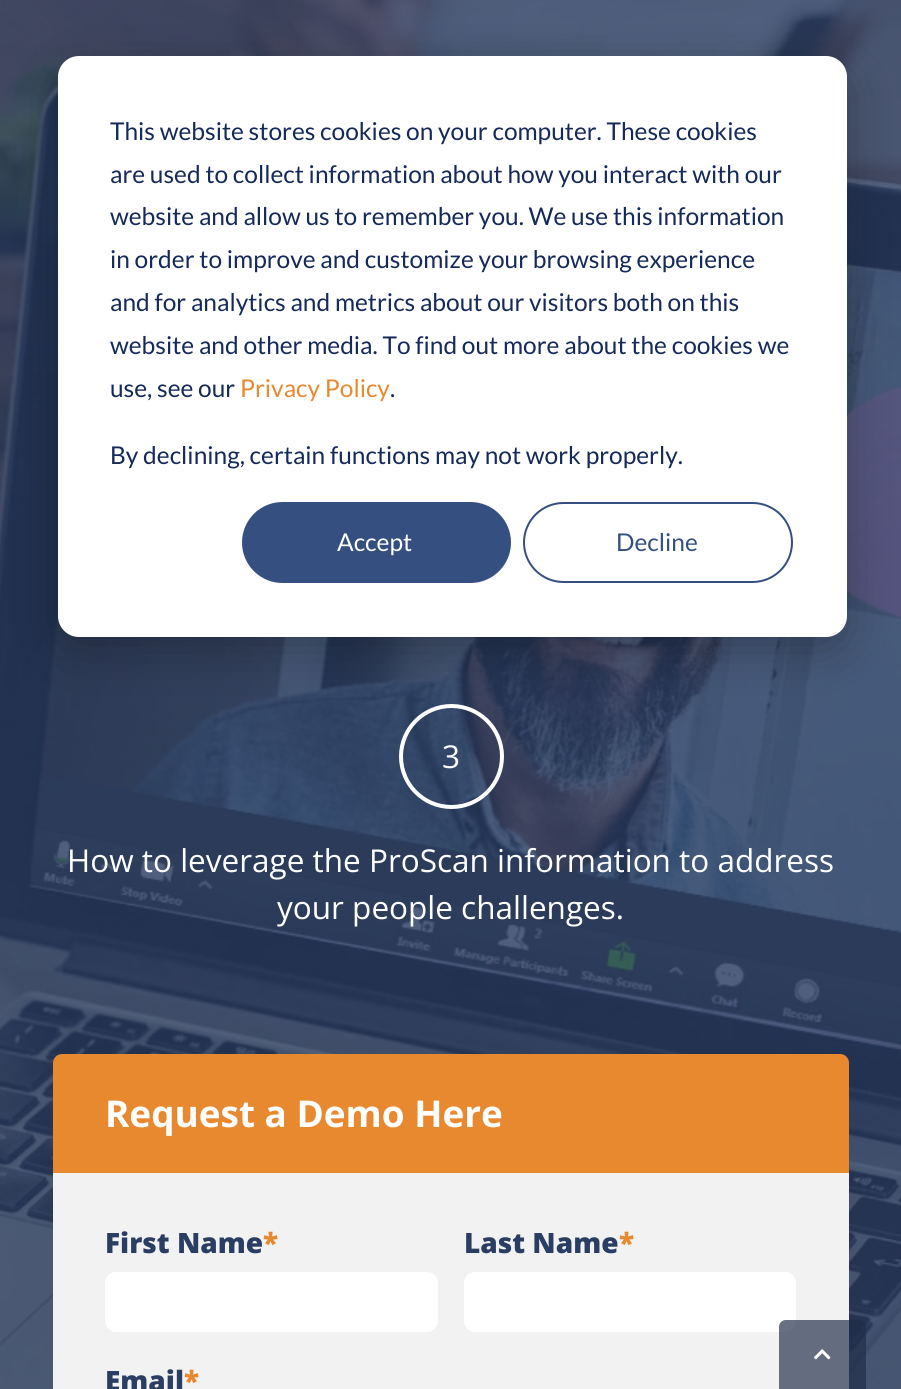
#include <cairo.h>
#include <math.h>
#include <stddef.h>

typedef struct { double x, y; const char *s; } line_t;

static void ink(cairo_t *ctx, unsigned color) {
    cairo_set_source_rgb(ctx, (color >> 16) / 255.0, (color >> 8 & 255) / 255.0, (color & 255) / 255.0);
}

static void round_path(cairo_t *ctx, double x, double y, double w, double h, double r) {
    cairo_new_sub_path(ctx);
    cairo_arc(ctx, x + w - r, y + h - r, r, 0, M_PI / 2);
    cairo_arc(ctx, x + r, y + h - r, r, M_PI / 2, M_PI);
    cairo_arc(ctx, x + r, y + r, r, M_PI, 1.5 * M_PI);
    cairo_arc(ctx, x + w - r, y + r, r, 1.5 * M_PI, 2 * M_PI);
    cairo_close_path(ctx);
}

static void blur_box(cairo_t *ctx, double x, double y, double w, double h, double r, double blur, double alpha) {
    cairo_push_group_with_content(ctx, CAIRO_CONTENT_ALPHA);
    cairo_set_operator(ctx, CAIRO_OPERATOR_SOURCE);
    for (int i = 15; i >= -15 && fmin(w, h) + blur * i / 3 > 0; i -= 2) {
        double e = blur * i / 6;
        cairo_set_source_rgba(ctx, 0, 0, 0, alpha * erfc((i - 1) / 8.5) / 2);
        round_path(ctx, x - e, y - e, w + 2 * e, h + 2 * e, fmax(0, fmin(r + e + blur * .6, fmin(w, h) / 2 + e)));
        cairo_fill(ctx);
    }
    cairo_pattern_t *soft = cairo_pop_group(ctx);
    cairo_mask(ctx, soft);
    cairo_pattern_destroy(soft);
}

static void paste(cairo_t *ctx, const char *path, double x, double y, double w, double h) {
    cairo_surface_t *image = cairo_image_surface_create_from_png(path);
    cairo_save(ctx);
    cairo_set_source_surface(ctx, image, x, y);
    cairo_rectangle(ctx, x, y, w, h);
    cairo_fill(ctx);
    cairo_restore(ctx);
    cairo_surface_destroy(image);
}

int main(void) {
    cairo_surface_t *surface = cairo_image_surface_create(CAIRO_FORMAT_RGB24, 901, 1389);
    cairo_t *ctx = cairo_create(surface);
    cairo_font_options_t *options = cairo_font_options_create();
    cairo_font_options_set_hint_metrics(options, CAIRO_HINT_METRICS_OFF);
    cairo_font_options_set_hint_style(options, CAIRO_HINT_STYLE_NONE);
    cairo_set_font_options(ctx, options);
    cairo_set_miter_limit(ctx, 4);
    ink(ctx, 0xFFFFFF);
    cairo_paint(ctx);
    paste(ctx, "media/1.png", 0, 0, 901, 1389);
    cairo_arc(ctx, 451.5, 756.5, 50.5, 0, 2 * M_PI);
    ink(ctx, 0xFFFFFF);
    cairo_set_line_width(ctx, 4);
    cairo_stroke(ctx);
    ink(ctx, 0x000000);
    blur_box(ctx, 58, 70, 789, 581, 21, 24.5, 0.28);
    ink(ctx, 0xFFFFFF);
    round_path(ctx, 58, 56, 789, 581, 21);
    cairo_fill(ctx);
    cairo_select_font_face(ctx, "Lato", CAIRO_FONT_SLANT_NORMAL, CAIRO_FONT_WEIGHT_NORMAL);
    cairo_set_font_size(ctx, 24.5);
    ink(ctx, 0x15295A);
    {
        static const line_t items[] = {
            {110, 140, "This website stores cookies on your computer. These cookies"},
            {110, 183, "are used to collect information about how you interact with our"},
            {110, 225, "website and allow us to remember you. We use this information"},
            {110, 268, "in order to improve and customize your browsing experience"},
            {110, 311, "and for analytics and metrics about our visitors both on this"},
            {110, 354, "website and other media. To find out more about the cookies we"},
            {110, 397, "use, see our"},
        };
        for (size_t i = 0; i < sizeof items / sizeof *items; i++) {
            cairo_move_to(ctx, items[i].x, items[i].y);
            cairo_show_text(ctx, items[i].s);
        }
    }
    ink(ctx, 0xE8892F);
    cairo_move_to(ctx, 240, 397);
    cairo_show_text(ctx, "Privacy Policy");
    ink(ctx, 0x15295A);
    cairo_move_to(ctx, 390, 397);
    cairo_show_text(ctx, ".");
    cairo_move_to(ctx, 110, 464);
    cairo_show_text(ctx, "By declining, certain functions may not work properly.");
    ink(ctx, 0x364F81);
    round_path(ctx, 243, 503, 267, 79, 39.5);
    cairo_fill_preserve(ctx);
    cairo_set_line_width(ctx, 2);
    cairo_stroke(ctx);
    ink(ctx, 0xFFFFFF);
    cairo_move_to(ctx, 337, 551);
    cairo_show_text(ctx, "Accept");
    round_path(ctx, 524, 503, 268, 79, 39.5);
    ink(ctx, 0x364F81);
    cairo_stroke(ctx);
    cairo_move_to(ctx, 616, 551);
    cairo_show_text(ctx, "Decline");
    cairo_select_font_face(ctx, "Open Sans", CAIRO_FONT_SLANT_NORMAL, CAIRO_FONT_WEIGHT_NORMAL);
    cairo_set_font_size(ctx, 31.5);
    ink(ctx, 0xFFFFFF);
    {
        static const line_t items[] = {
            {442, 768, "3"},
            {67, 872, "How to leverage the ProScan information to address"},
            {277, 919, "your people challenges."},
        };
        for (size_t i = 0; i < sizeof items / sizeof *items; i++) {
            cairo_move_to(ctx, items[i].x, items[i].y);
            cairo_show_text(ctx, items[i].s);
        }
    }
    ink(ctx, 0xE8892F);
    cairo_new_path(ctx);
    cairo_move_to(ctx, 62, 1054);
    cairo_line_to(ctx, 840, 1054);
    cairo_curve_to(ctx, 845, 1054, 849, 1058, 849, 1063);
    cairo_line_to(ctx, 849, 1173);
    cairo_line_to(ctx, 53, 1173);
    cairo_line_to(ctx, 53, 1063);
    cairo_curve_to(ctx, 53, 1058, 57, 1054, 62, 1054);
    cairo_close_path(ctx);
    cairo_fill(ctx);
    cairo_select_font_face(ctx, "Open Sans", CAIRO_FONT_SLANT_NORMAL, CAIRO_FONT_WEIGHT_BOLD);
    cairo_set_font_size(ctx, 36.9);
    ink(ctx, 0xFFFFFF);
    cairo_move_to(ctx, 105, 1127);
    cairo_show_text(ctx, "Request a Demo Here");
    ink(ctx, 0xF2F2F2);
    cairo_rectangle(ctx, 53, 1173, 796, 216);
    cairo_fill(ctx);
    cairo_select_font_face(ctx, "Open Sans ExtraBold", CAIRO_FONT_SLANT_NORMAL, CAIRO_FONT_WEIGHT_NORMAL);
    cairo_set_font_size(ctx, 28);
    ink(ctx, 0x2A3D63);
    cairo_move_to(ctx, 105, 1253);
    cairo_show_text(ctx, "First Name");
    ink(ctx, 0xE8892F);
    cairo_move_to(ctx, 263, 1253);
    cairo_show_text(ctx, "*");
    ink(ctx, 0xFFFFFF);
    round_path(ctx, 105, 1272, 333, 60, 11);
    cairo_fill(ctx);
    ink(ctx, 0x2A3D63);
    cairo_move_to(ctx, 464, 1253);
    cairo_show_text(ctx, "Last Name");
    ink(ctx, 0xE8892F);
    cairo_move_to(ctx, 619, 1253);
    cairo_show_text(ctx, "*");
    ink(ctx, 0xFFFFFF);
    round_path(ctx, 464, 1272, 332, 60, 11);
    cairo_fill(ctx);
    ink(ctx, 0x2A3D63);
    cairo_move_to(ctx, 105, 1391);
    cairo_show_text(ctx, "Email");
    ink(ctx, 0xE8892F);
    cairo_move_to(ctx, 184, 1391);
    cairo_show_text(ctx, "*");
    cairo_set_source_rgba(ctx, 0.165, 0.239, 0.388, 0.6);
    cairo_new_path(ctx);
    cairo_move_to(ctx, 786, 1320);
    cairo_line_to(ctx, 859, 1320);
    cairo_curve_to(ctx, 863, 1320, 866, 1323, 866, 1327);
    cairo_line_to(ctx, 866, 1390);
    cairo_line_to(ctx, 779, 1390);
    cairo_line_to(ctx, 779, 1327);
    cairo_curve_to(ctx, 779, 1323, 782, 1320, 786, 1320);
    cairo_close_path(ctx);
    cairo_fill(ctx);
    cairo_set_source_rgba(ctx, 0, 0, 0, 0.18);
    cairo_new_path(ctx);
    cairo_move_to(ctx, 786, 1320);
    cairo_line_to(ctx, 859, 1320);
    cairo_curve_to(ctx, 863, 1320, 866, 1323, 866, 1327);
    cairo_line_to(ctx, 866, 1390);
    cairo_line_to(ctx, 779, 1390);
    cairo_line_to(ctx, 779, 1327);
    cairo_curve_to(ctx, 779, 1323, 782, 1320, 786, 1320);
    cairo_close_path(ctx);
    cairo_fill(ctx);
    paste(ctx, "media/2.png", 814, 1349, 17, 11);
    cairo_surface_write_to_png(surface, "image.png");
    cairo_font_options_destroy(options);
    cairo_destroy(ctx);
    cairo_surface_destroy(surface);
    return 0;
}
